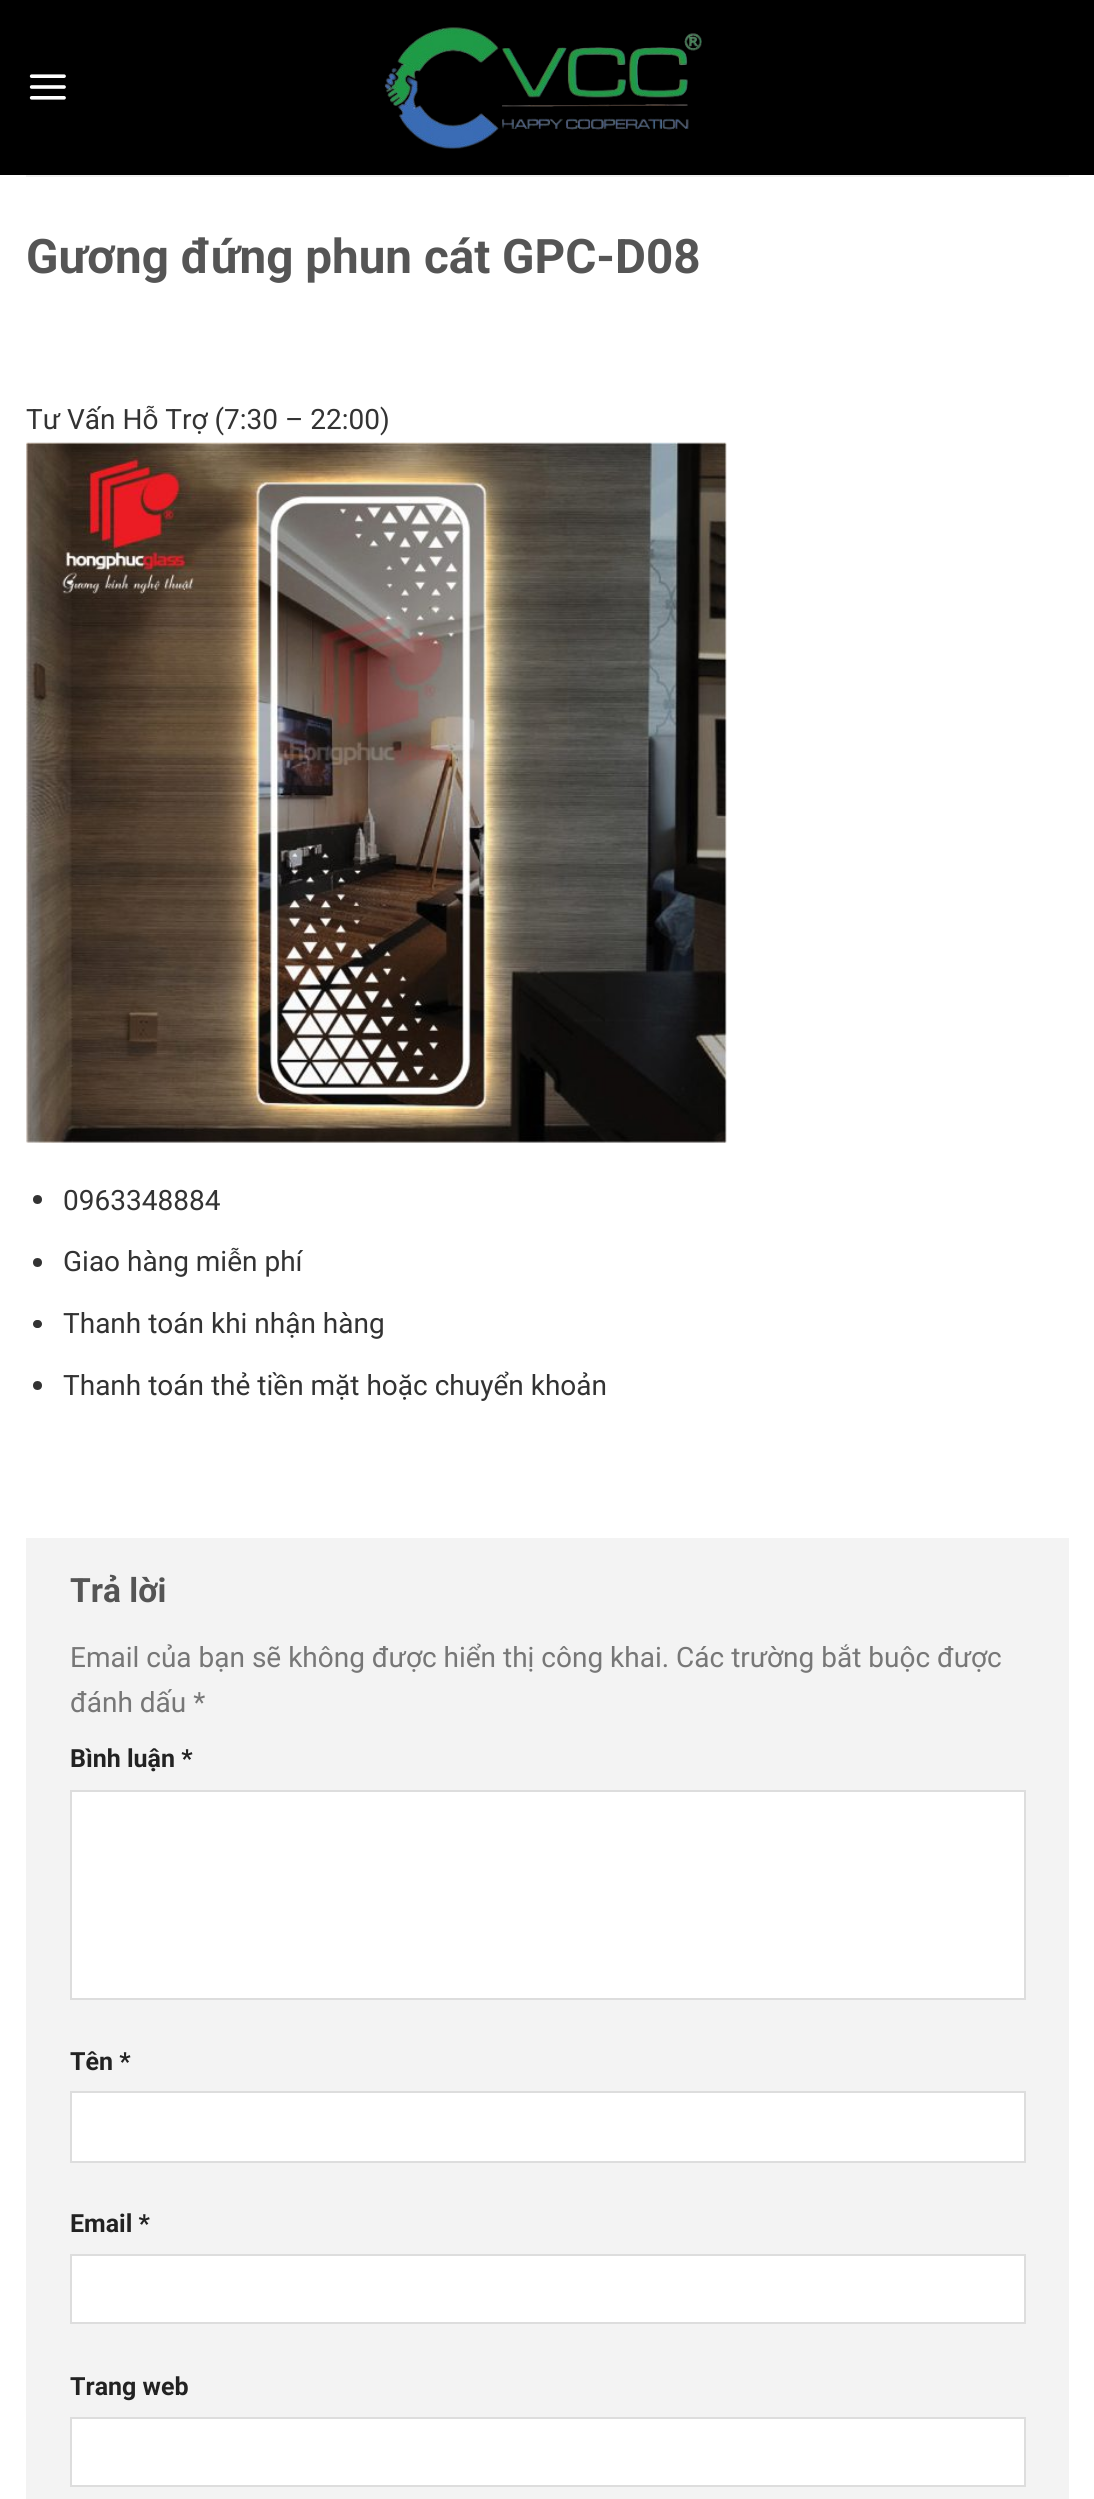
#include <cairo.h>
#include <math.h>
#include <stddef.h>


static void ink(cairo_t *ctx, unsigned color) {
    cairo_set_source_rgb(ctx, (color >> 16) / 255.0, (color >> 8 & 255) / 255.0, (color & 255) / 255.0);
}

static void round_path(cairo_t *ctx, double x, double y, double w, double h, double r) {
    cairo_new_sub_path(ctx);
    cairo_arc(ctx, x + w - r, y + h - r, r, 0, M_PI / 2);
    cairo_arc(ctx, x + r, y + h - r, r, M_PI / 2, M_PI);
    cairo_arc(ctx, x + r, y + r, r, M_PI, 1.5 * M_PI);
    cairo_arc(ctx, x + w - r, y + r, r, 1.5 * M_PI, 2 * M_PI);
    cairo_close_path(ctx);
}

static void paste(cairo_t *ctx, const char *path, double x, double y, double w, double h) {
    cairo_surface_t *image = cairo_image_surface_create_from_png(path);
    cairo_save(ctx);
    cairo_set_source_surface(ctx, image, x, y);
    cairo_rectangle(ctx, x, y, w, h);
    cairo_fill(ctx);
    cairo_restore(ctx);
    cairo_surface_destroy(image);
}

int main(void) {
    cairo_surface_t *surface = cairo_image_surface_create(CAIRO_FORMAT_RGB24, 1094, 2499);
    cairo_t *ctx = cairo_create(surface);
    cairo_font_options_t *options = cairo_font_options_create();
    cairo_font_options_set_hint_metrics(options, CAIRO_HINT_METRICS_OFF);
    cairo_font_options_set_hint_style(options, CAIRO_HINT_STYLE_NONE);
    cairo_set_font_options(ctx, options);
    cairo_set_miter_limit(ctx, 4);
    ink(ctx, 0xFFFFFF);
    cairo_paint(ctx);
    ink(ctx, 0x000000);
    cairo_rectangle(ctx, 0, 0, 1094, 175);
    cairo_fill(ctx);
    paste(ctx, "media/1.png", 29, 74, 37, 26);
    paste(ctx, "media/2.png", 384, 27, 318, 122);
    ink(ctx, 0xF1F1F1);
    cairo_rectangle(ctx, 26, 175, 1043, 2);
    cairo_fill(ctx);
    cairo_select_font_face(ctx, "Roboto", CAIRO_FONT_SLANT_NORMAL, CAIRO_FONT_WEIGHT_BOLD);
    cairo_set_font_size(ctx, 47.6);
    ink(ctx, 0x555555);
    cairo_move_to(ctx, 26, 273);
    cairo_show_text(ctx, "Gương đứng phun cát GPC-D08");
    cairo_select_font_face(ctx, "Roboto", CAIRO_FONT_SLANT_NORMAL, CAIRO_FONT_WEIGHT_NORMAL);
    cairo_set_font_size(ctx, 28);
    ink(ctx, 0x333333);
    cairo_move_to(ctx, 26, 429);
    cairo_show_text(ctx, "Tư Vấn Hỗ Trợ (7:30 – 22:00)");
    paste(ctx, "media/3.png", 26, 442, 701, 701);
    cairo_arc(ctx, 37.5, 1199.5, 4.5, 0, 2 * M_PI);
    cairo_fill(ctx);
    cairo_move_to(ctx, 63, 1210);
    cairo_show_text(ctx, "0963348884");
    cairo_new_path(ctx);
    cairo_arc(ctx, 37.5, 1262.5, 4.5, 0, 2 * M_PI);
    cairo_fill(ctx);
    cairo_move_to(ctx, 63, 1271);
    cairo_show_text(ctx, "Giao hàng miễn phí");
    round_path(ctx, 33, 1320, 9, 8, 4);
    cairo_fill(ctx);
    cairo_move_to(ctx, 63, 1333);
    cairo_show_text(ctx, "Thanh toán khi nhận hàng");
    cairo_new_path(ctx);
    cairo_arc(ctx, 37.5, 1385.5, 4.5, 0, 2 * M_PI);
    cairo_fill(ctx);
    cairo_move_to(ctx, 63, 1395);
    cairo_show_text(ctx, "Thanh toán thẻ tiền mặt hoặc chuyển khoản");
    ink(ctx, 0xF3F3F3);
    cairo_rectangle(ctx, 26, 1538, 1043, 961);
    cairo_fill(ctx);
    cairo_select_font_face(ctx, "Roboto", CAIRO_FONT_SLANT_NORMAL, CAIRO_FONT_WEIGHT_BOLD);
    cairo_set_font_size(ctx, 33.5);
    ink(ctx, 0x555555);
    cairo_move_to(ctx, 70, 1602);
    cairo_show_text(ctx, "Trả lời");
    cairo_select_font_face(ctx, "Roboto", CAIRO_FONT_SLANT_NORMAL, CAIRO_FONT_WEIGHT_NORMAL);
    cairo_set_font_size(ctx, 28);
    ink(ctx, 0x777777);
    cairo_move_to(ctx, 70, 1667);
    cairo_show_text(ctx, "Email của bạn sẽ không được hiển thị công khai. Các trường bắt buộc được");
    cairo_move_to(ctx, 70, 1712);
    cairo_show_text(ctx, "đánh dấu *");
    cairo_select_font_face(ctx, "Roboto", CAIRO_FONT_SLANT_NORMAL, CAIRO_FONT_WEIGHT_BOLD);
    cairo_set_font_size(ctx, 25);
    ink(ctx, 0x222222);
    cairo_move_to(ctx, 70, 1767);
    cairo_show_text(ctx, "Bình luận *");
    ink(ctx, 0xFFFFFF);
    cairo_rectangle(ctx, 71, 1791, 954, 208);
    cairo_fill_preserve(ctx);
    ink(ctx, 0xDDDDDD);
    cairo_stroke(ctx);
    ink(ctx, 0x222222);
    cairo_move_to(ctx, 70, 2070);
    cairo_show_text(ctx, "Tên *");
    ink(ctx, 0xFFFFFF);
    cairo_rectangle(ctx, 71, 2092, 954, 70);
    cairo_fill_preserve(ctx);
    ink(ctx, 0xDDDDDD);
    cairo_stroke(ctx);
    ink(ctx, 0x222222);
    cairo_move_to(ctx, 70, 2232);
    cairo_show_text(ctx, "Email *");
    ink(ctx, 0xFFFFFF);
    cairo_rectangle(ctx, 71, 2255, 954, 68);
    cairo_fill_preserve(ctx);
    ink(ctx, 0xDDDDDD);
    cairo_stroke(ctx);
    ink(ctx, 0x222222);
    cairo_move_to(ctx, 70, 2395);
    cairo_show_text(ctx, "Trang web");
    ink(ctx, 0xFFFFFF);
    cairo_rectangle(ctx, 71, 2418, 954, 68);
    cairo_fill_preserve(ctx);
    ink(ctx, 0xDDDDDD);
    cairo_stroke(ctx);
    cairo_surface_write_to_png(surface, "image.png");
    cairo_font_options_destroy(options);
    cairo_destroy(ctx);
    cairo_surface_destroy(surface);
    return 0;
}
